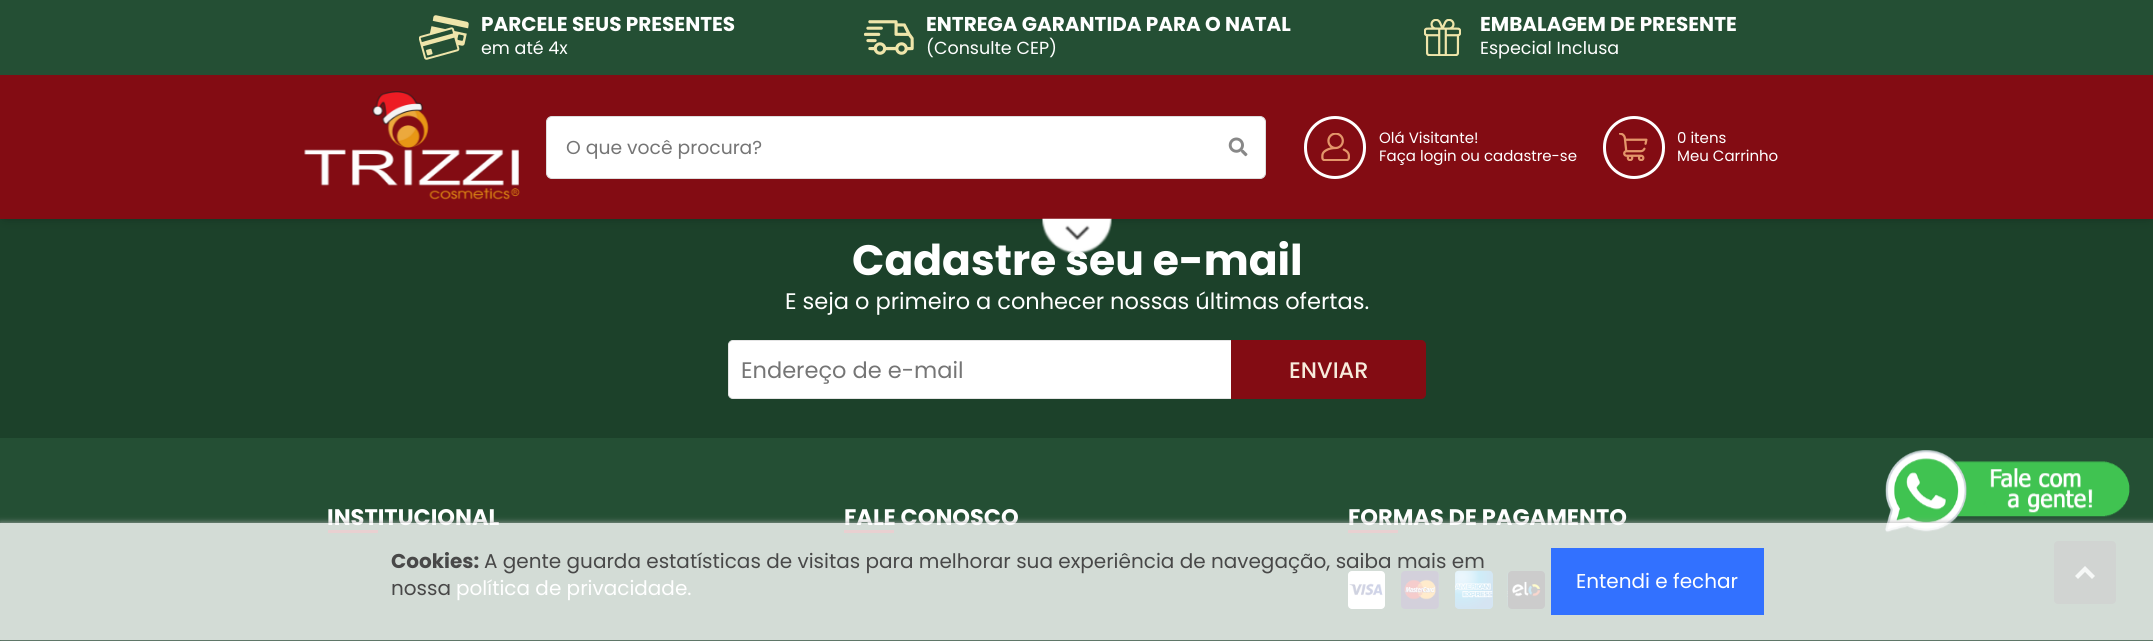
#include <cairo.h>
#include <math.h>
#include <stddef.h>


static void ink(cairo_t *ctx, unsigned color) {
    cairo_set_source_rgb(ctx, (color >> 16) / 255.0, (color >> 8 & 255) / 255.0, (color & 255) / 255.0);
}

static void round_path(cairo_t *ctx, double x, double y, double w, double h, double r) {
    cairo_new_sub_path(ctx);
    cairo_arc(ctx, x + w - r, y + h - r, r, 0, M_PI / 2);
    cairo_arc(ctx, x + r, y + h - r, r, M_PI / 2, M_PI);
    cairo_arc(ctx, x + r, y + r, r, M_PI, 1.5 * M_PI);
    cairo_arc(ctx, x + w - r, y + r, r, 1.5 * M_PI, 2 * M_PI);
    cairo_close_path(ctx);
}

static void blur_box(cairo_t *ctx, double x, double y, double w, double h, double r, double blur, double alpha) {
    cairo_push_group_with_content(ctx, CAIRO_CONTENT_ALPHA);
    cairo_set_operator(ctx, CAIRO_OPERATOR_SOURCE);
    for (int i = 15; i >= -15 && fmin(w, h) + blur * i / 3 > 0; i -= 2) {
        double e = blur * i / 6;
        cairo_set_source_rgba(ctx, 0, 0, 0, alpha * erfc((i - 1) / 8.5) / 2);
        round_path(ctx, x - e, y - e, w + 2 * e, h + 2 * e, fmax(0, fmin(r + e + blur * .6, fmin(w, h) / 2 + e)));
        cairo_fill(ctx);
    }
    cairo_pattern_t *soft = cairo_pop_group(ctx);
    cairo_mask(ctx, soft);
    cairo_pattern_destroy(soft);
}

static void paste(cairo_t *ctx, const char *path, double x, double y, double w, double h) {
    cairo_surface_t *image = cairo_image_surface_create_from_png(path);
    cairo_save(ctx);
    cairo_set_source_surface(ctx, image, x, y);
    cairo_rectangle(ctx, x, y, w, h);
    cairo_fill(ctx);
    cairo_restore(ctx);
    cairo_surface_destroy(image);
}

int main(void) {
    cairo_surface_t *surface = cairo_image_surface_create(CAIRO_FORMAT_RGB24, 2153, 641);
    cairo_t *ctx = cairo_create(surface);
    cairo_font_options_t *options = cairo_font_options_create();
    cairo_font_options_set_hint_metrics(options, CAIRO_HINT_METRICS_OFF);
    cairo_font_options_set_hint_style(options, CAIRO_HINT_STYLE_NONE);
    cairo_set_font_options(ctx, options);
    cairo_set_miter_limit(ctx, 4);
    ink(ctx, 0x244F34);
    cairo_paint(ctx);
    ink(ctx, 0x1C412A);
    cairo_rectangle(ctx, 0, 219, 2153, 219);
    cairo_fill(ctx);
    ink(ctx, 0x000000);
    blur_box(ctx, 5, 8, 2144, 208, 0, 6, 0.36);
    ink(ctx, 0x830C13);
    cairo_rectangle(ctx, 0, 75, 2153, 144);
    cairo_fill(ctx);
    ink(ctx, 0x244F34);
    cairo_rectangle(ctx, 0, 0, 2153, 75);
    cairo_fill(ctx);
    paste(ctx, "media/1.png", 419, 15, 50, 45);
    cairo_select_font_face(ctx, "Poppins", CAIRO_FONT_SLANT_NORMAL, CAIRO_FONT_WEIGHT_BOLD);
    cairo_set_font_size(ctx, 20);
    ink(ctx, 0xFFFFFF);
    cairo_move_to(ctx, 481, 31);
    cairo_show_text(ctx, "PARCELE SEUS PRESENTES");
    cairo_select_font_face(ctx, "Poppins", CAIRO_FONT_SLANT_NORMAL, CAIRO_FONT_WEIGHT_NORMAL);
    cairo_set_font_size(ctx, 17.5);
    cairo_move_to(ctx, 481, 54);
    cairo_show_text(ctx, "em até 4x");
    paste(ctx, "media/2.png", 864, 20, 50, 35);
    cairo_select_font_face(ctx, "Poppins", CAIRO_FONT_SLANT_NORMAL, CAIRO_FONT_WEIGHT_BOLD);
    cairo_set_font_size(ctx, 20);
    cairo_move_to(ctx, 926, 31);
    cairo_show_text(ctx, "ENTREGA GARANTIDA PARA O NATAL");
    cairo_select_font_face(ctx, "Poppins", CAIRO_FONT_SLANT_NORMAL, CAIRO_FONT_WEIGHT_NORMAL);
    cairo_set_font_size(ctx, 17.5);
    cairo_move_to(ctx, 926, 54);
    cairo_show_text(ctx, "(Consulte CEP)");
    paste(ctx, "media/3.png", 1424, 19, 37, 37);
    cairo_select_font_face(ctx, "Poppins", CAIRO_FONT_SLANT_NORMAL, CAIRO_FONT_WEIGHT_BOLD);
    cairo_set_font_size(ctx, 20);
    cairo_move_to(ctx, 1480, 31);
    cairo_show_text(ctx, "EMBALAGEM DE PRESENTE");
    cairo_select_font_face(ctx, "Poppins", CAIRO_FONT_SLANT_NORMAL, CAIRO_FONT_WEIGHT_NORMAL);
    cairo_set_font_size(ctx, 17.5);
    cairo_move_to(ctx, 1480, 54);
    cairo_show_text(ctx, "Especial Inclusa");
    paste(ctx, "media/4.png", 304, 91, 216, 109);
    round_path(ctx, 546.5, 116.5, 719, 62, 5.5);
    cairo_fill_preserve(ctx);
    ink(ctx, 0xDDDDDD);
    cairo_set_line_width(ctx, 1);
    cairo_stroke(ctx);
    cairo_set_font_size(ctx, 18.75);
    ink(ctx, 0x757575);
    cairo_move_to(ctx, 566, 154);
    cairo_show_text(ctx, "O que você procura?");
    paste(ctx, "media/5.png", 1228, 137, 20, 20);
    paste(ctx, "media/6.png", 1321, 133, 29, 28);
    round_path(ctx, 1305.5, 117.5, 59, 60, 29.5);
    ink(ctx, 0xFFFFFF);
    cairo_set_line_width(ctx, 3);
    cairo_stroke(ctx);
    cairo_set_font_size(ctx, 15);
    cairo_move_to(ctx, 1379, 143);
    cairo_show_text(ctx, "Olá Visitante!");
    cairo_move_to(ctx, 1379, 161);
    cairo_show_text(ctx, "Faça login ou cadastre-se");
    paste(ctx, "media/7.png", 1619, 133, 29, 28);
    round_path(ctx, 1604.5, 117.5, 59, 60, 29.5);
    cairo_stroke(ctx);
    cairo_move_to(ctx, 1677, 143);
    cairo_show_text(ctx, "0 itens");
    cairo_move_to(ctx, 1677, 161);
    cairo_show_text(ctx, "Meu Carrinho");
    cairo_select_font_face(ctx, "Poppins", CAIRO_FONT_SLANT_NORMAL, CAIRO_FONT_WEIGHT_BOLD);
    cairo_set_font_size(ctx, 42.5);
    cairo_move_to(ctx, 852, 275);
    cairo_show_text(ctx, "Cadastre seu e-mail");
    paste(ctx, "media/8.png", 1042, 218, 70, 36);
    cairo_select_font_face(ctx, "Poppins", CAIRO_FONT_SLANT_NORMAL, CAIRO_FONT_WEIGHT_NORMAL);
    cairo_set_font_size(ctx, 22.5);
    cairo_move_to(ctx, 785, 309);
    cairo_show_text(ctx, "E seja o primeiro a conhecer nossas últimas ofertas.");
    cairo_new_path(ctx);
    cairo_move_to(ctx, 733, 340.5);
    cairo_line_to(ctx, 1252.5, 340.5);
    cairo_line_to(ctx, 1252.5, 398.5);
    cairo_line_to(ctx, 733, 398.5);
    cairo_curve_to(ctx, 730.5, 398.5, 728.5, 396.5, 728.5, 394);
    cairo_line_to(ctx, 728.5, 345);
    cairo_curve_to(ctx, 728.5, 342.5, 730.5, 340.5, 733, 340.5);
    cairo_close_path(ctx);
    cairo_fill_preserve(ctx);
    ink(ctx, 0xE4E4E4);
    cairo_set_line_width(ctx, 1);
    cairo_stroke(ctx);
    ink(ctx, 0x757575);
    cairo_move_to(ctx, 741, 378);
    cairo_show_text(ctx, "Endereço de e-mail");
    ink(ctx, 0x830C13);
    cairo_new_path(ctx);
    cairo_move_to(ctx, 1231.5, 340.5);
    cairo_line_to(ctx, 1421, 340.5);
    cairo_curve_to(ctx, 1423.5, 340.5, 1425.5, 342.5, 1425.5, 345);
    cairo_line_to(ctx, 1425.5, 394);
    cairo_curve_to(ctx, 1425.5, 396.5, 1423.5, 398.5, 1421, 398.5);
    cairo_line_to(ctx, 1231.5, 398.5);
    cairo_close_path(ctx);
    cairo_fill_preserve(ctx);
    cairo_stroke(ctx);
    cairo_select_font_face(ctx, "Poppins Medium", CAIRO_FONT_SLANT_NORMAL, CAIRO_FONT_WEIGHT_NORMAL);
    ink(ctx, 0xF7EBDC);
    cairo_move_to(ctx, 1289, 378);
    cairo_show_text(ctx, "ENVIAR");
    cairo_select_font_face(ctx, "Poppins", CAIRO_FONT_SLANT_NORMAL, CAIRO_FONT_WEIGHT_BOLD);
    ink(ctx, 0xFFFFFF);
    cairo_move_to(ctx, 327, 525);
    cairo_show_text(ctx, "INSTITUCIONAL");
    ink(ctx, 0x931218);
    cairo_rectangle(ctx, 328, 530, 50, 3);
    cairo_fill(ctx);
    ink(ctx, 0xFFFFFF);
    cairo_move_to(ctx, 844, 525);
    cairo_show_text(ctx, "FALE CONOSCO");
    ink(ctx, 0x931218);
    cairo_rectangle(ctx, 844, 530, 50, 3);
    cairo_fill(ctx);
    ink(ctx, 0xFFFFFF);
    cairo_move_to(ctx, 1348, 525);
    cairo_show_text(ctx, "FORMAS DE PAGAMENTO");
    ink(ctx, 0x931218);
    cairo_rectangle(ctx, 1348, 530, 50, 3);
    cairo_fill(ctx);
    ink(ctx, 0xFFFFFF);
    round_path(ctx, 1348, 571, 37, 38, 4);
    cairo_fill(ctx);
    paste(ctx, "media/9.png", 1349, 583, 34, 13);
    ink(ctx, 0x23164A);
    round_path(ctx, 1401, 571, 38, 38, 4);
    cairo_fill(ctx);
    paste(ctx, "media/10.png", 1404, 572, 35, 35);
    ink(ctx, 0x2583C5);
    round_path(ctx, 1455, 571, 38, 38, 4);
    cairo_fill(ctx);
    paste(ctx, "media/11.png", 1455, 570, 38, 38);
    ink(ctx, 0x000000);
    round_path(ctx, 1508, 571, 37, 38, 4);
    cairo_fill(ctx);
    paste(ctx, "media/12.png", 1507, 572, 34, 35);
    paste(ctx, "media/13.png", 1885, 450, 245, 83);
    ink(ctx, 0x182A1E);
    round_path(ctx, 2054, 541, 62, 63, 4);
    cairo_fill(ctx);
    ink(ctx, 0xD3DCD6);
    cairo_new_path(ctx);
    cairo_move_to(ctx, 2085, 566);
    cairo_line_to(ctx, 2095, 576);
    cairo_line_to(ctx, 2092, 579);
    cairo_line_to(ctx, 2085, 572);
    cairo_line_to(ctx, 2078, 579);
    cairo_line_to(ctx, 2075, 576);
    cairo_close_path(ctx);
    cairo_fill(ctx);
    cairo_save(ctx);
    cairo_set_fill_rule(ctx, CAIRO_FILL_RULE_EVEN_ODD);
    cairo_new_path(ctx);
    cairo_move_to(ctx, 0, 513);
    cairo_line_to(ctx, 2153, 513);
    cairo_line_to(ctx, 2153, 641);
    cairo_line_to(ctx, 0, 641);
    cairo_close_path(ctx);
    cairo_move_to(ctx, 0, 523);
    cairo_line_to(ctx, 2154, 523);
    cairo_line_to(ctx, 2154, 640);
    cairo_line_to(ctx, 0, 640);
    cairo_close_path(ctx);
    cairo_clip(ctx);
    ink(ctx, 0xAAAAAA);
    blur_box(ctx, 0, 523, 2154, 117, 0, 3, 1);
    cairo_restore(ctx);
    cairo_set_source_rgba(ctx, 1, 1, 1, 0.8);
    cairo_rectangle(ctx, 0, 523, 2153, 117);
    cairo_fill(ctx);
    cairo_set_font_size(ctx, 20);
    ink(ctx, 0x484848);
    cairo_move_to(ctx, 391, 568);
    cairo_show_text(ctx, "Cookies:");
    cairo_select_font_face(ctx, "Poppins", CAIRO_FONT_SLANT_NORMAL, CAIRO_FONT_WEIGHT_NORMAL);
    cairo_move_to(ctx, 484, 568);
    cairo_show_text(ctx, "A gente guarda estatísticas de visitas para melhorar sua experiência de navegação, saiba mais em");
    cairo_move_to(ctx, 391, 595);
    cairo_show_text(ctx, "nossa");
    ink(ctx, 0xFFFFFF);
    cairo_move_to(ctx, 456, 595);
    cairo_show_text(ctx, "política de privacidade.");
    ink(ctx, 0x3271FF);
    cairo_rectangle(ctx, 1551, 548, 213, 67);
    cairo_fill(ctx);
    ink(ctx, 0xFFFFFF);
    cairo_move_to(ctx, 1576, 588);
    cairo_show_text(ctx, "Entendi e fechar");
    cairo_surface_write_to_png(surface, "image.png");
    cairo_font_options_destroy(options);
    cairo_destroy(ctx);
    cairo_surface_destroy(surface);
    return 0;
}
